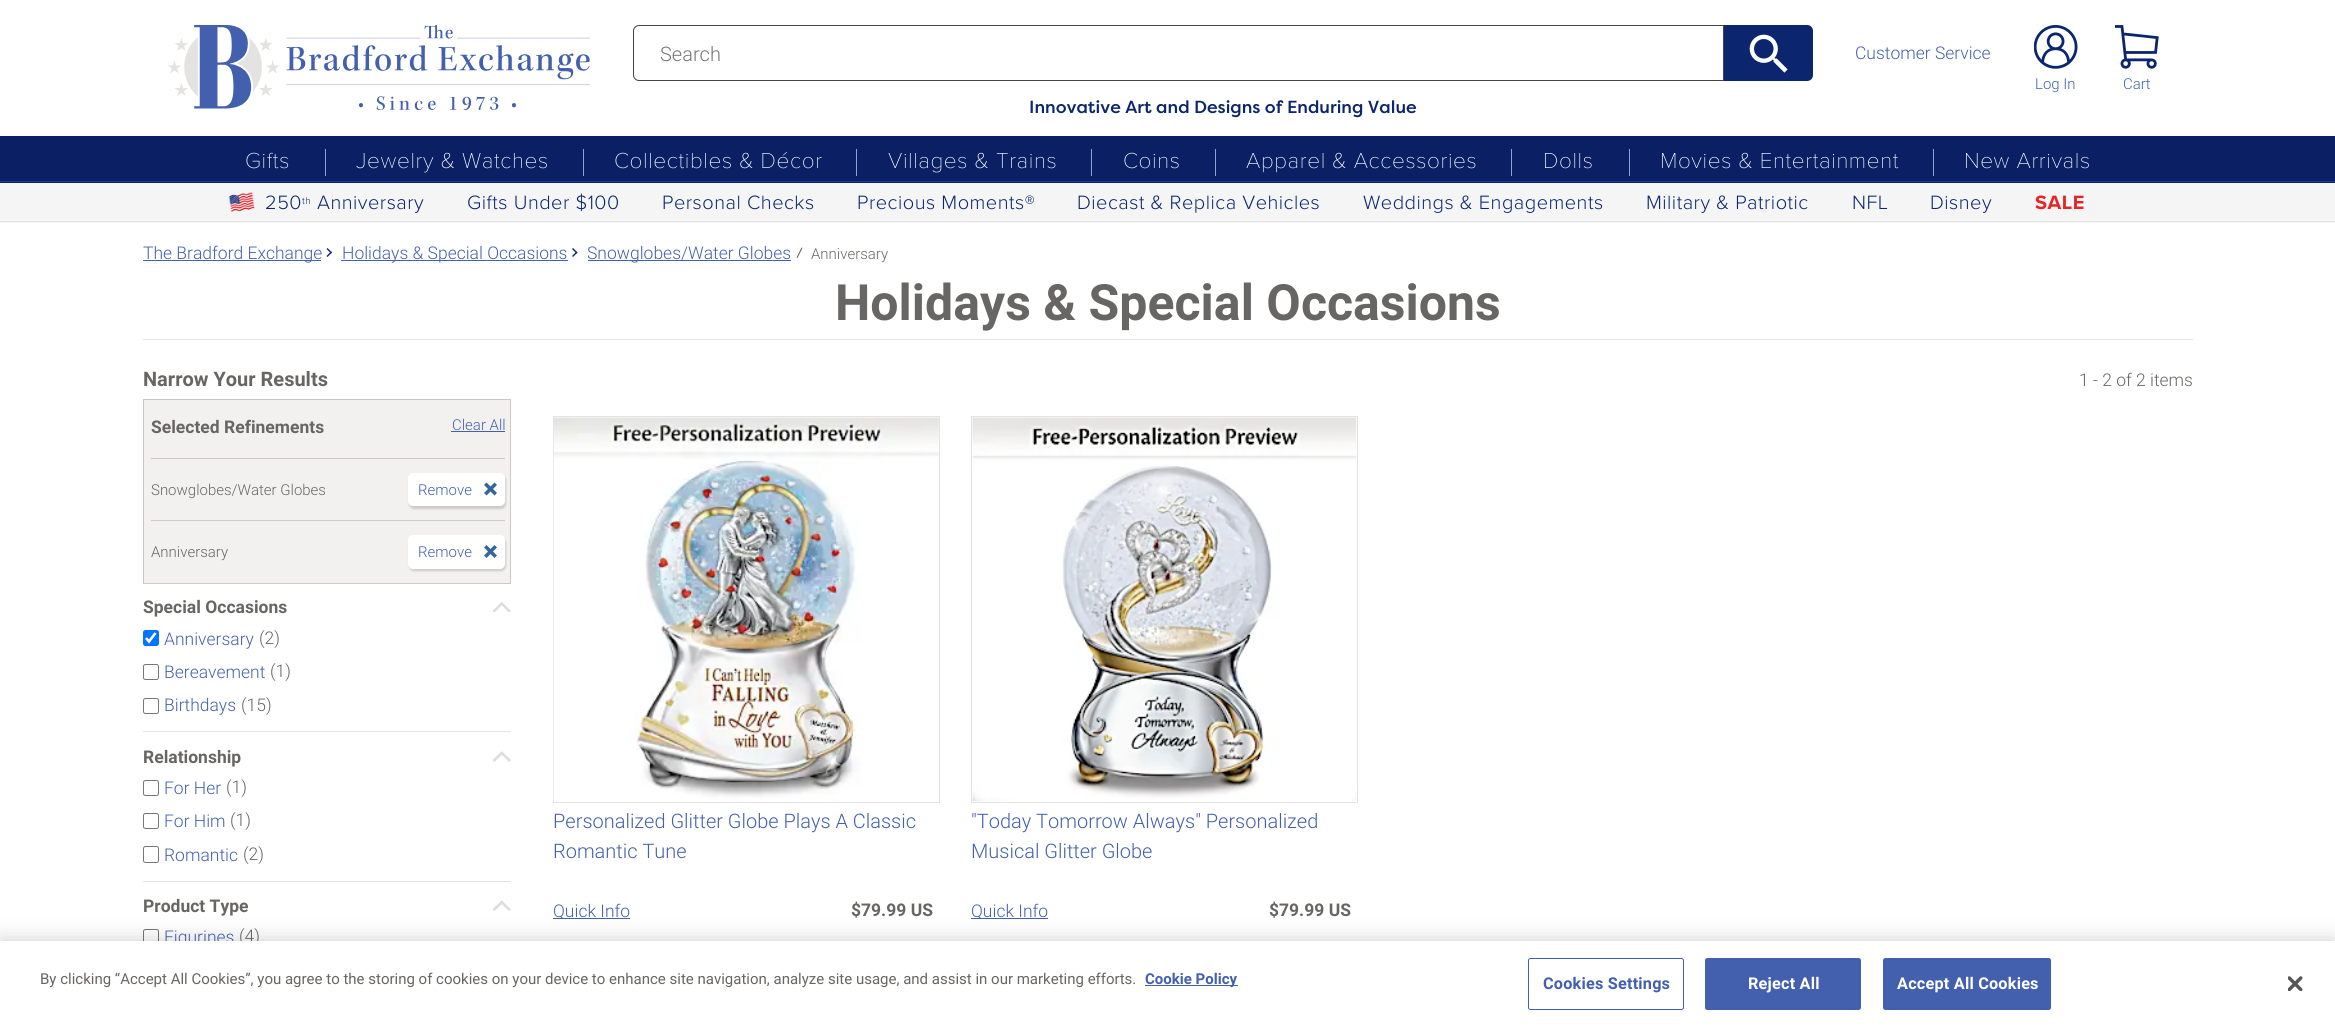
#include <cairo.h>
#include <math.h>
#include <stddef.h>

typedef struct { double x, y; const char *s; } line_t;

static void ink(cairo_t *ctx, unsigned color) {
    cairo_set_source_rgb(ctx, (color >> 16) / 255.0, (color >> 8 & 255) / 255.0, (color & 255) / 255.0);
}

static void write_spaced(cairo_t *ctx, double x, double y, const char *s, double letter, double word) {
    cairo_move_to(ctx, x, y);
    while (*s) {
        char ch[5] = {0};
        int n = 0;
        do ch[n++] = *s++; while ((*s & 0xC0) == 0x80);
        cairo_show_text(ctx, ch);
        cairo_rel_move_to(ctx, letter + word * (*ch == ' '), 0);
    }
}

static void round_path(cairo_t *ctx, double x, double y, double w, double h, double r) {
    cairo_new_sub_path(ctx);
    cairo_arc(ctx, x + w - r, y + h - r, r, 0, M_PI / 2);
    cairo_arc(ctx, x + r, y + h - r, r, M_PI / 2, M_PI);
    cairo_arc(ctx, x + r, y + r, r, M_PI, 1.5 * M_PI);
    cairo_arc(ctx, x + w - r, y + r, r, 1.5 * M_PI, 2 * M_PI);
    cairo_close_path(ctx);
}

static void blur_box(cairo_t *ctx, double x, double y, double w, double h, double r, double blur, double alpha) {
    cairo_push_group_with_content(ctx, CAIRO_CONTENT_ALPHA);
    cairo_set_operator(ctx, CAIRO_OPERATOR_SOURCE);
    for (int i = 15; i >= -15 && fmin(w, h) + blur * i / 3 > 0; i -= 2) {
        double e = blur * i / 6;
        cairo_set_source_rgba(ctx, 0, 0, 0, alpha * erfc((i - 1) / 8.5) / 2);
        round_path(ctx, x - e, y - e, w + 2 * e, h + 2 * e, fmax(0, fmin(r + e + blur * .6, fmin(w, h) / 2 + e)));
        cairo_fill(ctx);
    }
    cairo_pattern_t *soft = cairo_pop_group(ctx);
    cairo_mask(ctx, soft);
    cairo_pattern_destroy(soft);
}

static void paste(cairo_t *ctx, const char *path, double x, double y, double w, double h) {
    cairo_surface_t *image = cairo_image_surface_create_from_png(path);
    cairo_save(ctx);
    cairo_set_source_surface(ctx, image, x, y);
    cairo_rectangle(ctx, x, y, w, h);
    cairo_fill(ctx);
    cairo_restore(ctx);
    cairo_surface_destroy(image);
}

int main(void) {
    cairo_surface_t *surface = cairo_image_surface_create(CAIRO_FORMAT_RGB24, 2335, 1029);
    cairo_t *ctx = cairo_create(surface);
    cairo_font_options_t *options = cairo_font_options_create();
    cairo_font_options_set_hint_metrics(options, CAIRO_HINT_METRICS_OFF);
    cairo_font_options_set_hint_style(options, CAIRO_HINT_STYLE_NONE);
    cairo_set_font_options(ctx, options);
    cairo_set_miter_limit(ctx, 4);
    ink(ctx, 0xFFFFFF);
    cairo_paint(ctx);
    paste(ctx, "media/1.png", 168, 25, 422, 85);
    cairo_new_path(ctx);
    cairo_move_to(ctx, 639, 25.5);
    cairo_line_to(ctx, 1723.5, 25.5);
    cairo_line_to(ctx, 1723.5, 80.5);
    cairo_line_to(ctx, 639, 80.5);
    cairo_curve_to(ctx, 636, 80.5, 633.5, 78, 633.5, 75);
    cairo_line_to(ctx, 633.5, 31);
    cairo_curve_to(ctx, 633.5, 28, 636, 25.5, 639, 25.5);
    cairo_close_path(ctx);
    ink(ctx, 0x474441);
    cairo_set_line_width(ctx, 1);
    cairo_stroke(ctx);
    cairo_select_font_face(ctx, "Roboto Light", CAIRO_FONT_SLANT_NORMAL, CAIRO_FONT_WEIGHT_NORMAL);
    cairo_set_font_size(ctx, 20);
    ink(ctx, 0x757575);
    cairo_move_to(ctx, 660, 61);
    cairo_show_text(ctx, "Search");
    ink(ctx, 0x0B266E);
    cairo_new_path(ctx);
    cairo_move_to(ctx, 1724, 25);
    cairo_line_to(ctx, 1807, 25);
    cairo_curve_to(ctx, 1810.5, 25, 1813, 27.5, 1813, 31);
    cairo_line_to(ctx, 1813, 75);
    cairo_curve_to(ctx, 1813, 78.5, 1810.5, 81, 1807, 81);
    cairo_line_to(ctx, 1724, 81);
    cairo_close_path(ctx);
    cairo_fill(ctx);
    paste(ctx, "media/2.png", 1749, 34, 39, 39);
    cairo_select_font_face(ctx, "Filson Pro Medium", CAIRO_FONT_SLANT_NORMAL, CAIRO_FONT_WEIGHT_NORMAL);
    cairo_set_font_size(ctx, 17.5);
    cairo_move_to(ctx, 1029, 113);
    cairo_show_text(ctx, "Innovative Art and Designs of Enduring Value");
    cairo_select_font_face(ctx, "Roboto Light", CAIRO_FONT_SLANT_NORMAL, CAIRO_FONT_WEIGHT_NORMAL);
    ink(ctx, 0x4360AE);
    cairo_move_to(ctx, 1855, 59);
    cairo_show_text(ctx, "Customer Service");
    paste(ctx, "media/3.png", 2034, 25, 44, 44);
    cairo_set_font_size(ctx, 15);
    cairo_move_to(ctx, 2035, 89);
    cairo_show_text(ctx, "Log In");
    paste(ctx, "media/4.png", 2115, 25, 44, 44);
    cairo_move_to(ctx, 2123, 89);
    cairo_show_text(ctx, "Cart");
    ink(ctx, 0x0A1F64);
    cairo_rectangle(ctx, 0, 136, 2335, 47);
    cairo_fill(ctx);
    ink(ctx, 0x1E3F94);
    cairo_rectangle(ctx, 0, 181, 2335, 1);
    cairo_fill(ctx);
    cairo_select_font_face(ctx, "Proxima Nova Thin", CAIRO_FONT_SLANT_NORMAL, CAIRO_FONT_WEIGHT_NORMAL);
    cairo_set_font_size(ctx, 22.5);
    ink(ctx, 0xFFFFFF);
    write_spaced(ctx, 245, 168, "Gifts", 0.6, 0);
    ink(ctx, 0x8DA1D6);
    cairo_rectangle(ctx, 325, 149, 1, 27);
    cairo_fill(ctx);
    ink(ctx, 0xFFFFFF);
    write_spaced(ctx, 356, 168, "Jewelry & Watches", 0.6, 0);
    ink(ctx, 0x8DA1D6);
    cairo_rectangle(ctx, 583, 149, 1, 27);
    cairo_fill(ctx);
    ink(ctx, 0xFFFFFF);
    write_spaced(ctx, 614, 168, "Collectibles & Décor", 0.6, 0);
    ink(ctx, 0x8DA1D6);
    cairo_rectangle(ctx, 856, 149, 1, 27);
    cairo_fill(ctx);
    ink(ctx, 0xFFFFFF);
    write_spaced(ctx, 888, 168, "Villages & Trains", 0.6, 0);
    ink(ctx, 0x8DA1D6);
    cairo_rectangle(ctx, 1091, 149, 1, 27);
    cairo_fill(ctx);
    ink(ctx, 0xFFFFFF);
    write_spaced(ctx, 1123, 168, "Coins", 0.6, 0);
    ink(ctx, 0x8DA1D6);
    cairo_rectangle(ctx, 1215, 149, 1, 27);
    cairo_fill(ctx);
    ink(ctx, 0xFFFFFF);
    write_spaced(ctx, 1246, 168, "Apparel & Accessories", 0.6, 0);
    ink(ctx, 0x8DA1D6);
    cairo_rectangle(ctx, 1511, 149, 1, 27);
    cairo_fill(ctx);
    ink(ctx, 0xFFFFFF);
    write_spaced(ctx, 1543, 168, "Dolls", 0.6, 0);
    ink(ctx, 0x8DA1D6);
    cairo_rectangle(ctx, 1629, 149, 1, 27);
    cairo_fill(ctx);
    ink(ctx, 0xFFFFFF);
    write_spaced(ctx, 1660, 168, "Movies & Entertainment", 0.6, 0);
    ink(ctx, 0x8DA1D6);
    cairo_rectangle(ctx, 1933, 149, 1, 27);
    cairo_fill(ctx);
    ink(ctx, 0xFFFFFF);
    write_spaced(ctx, 1964, 168, "New Arrivals", 0.6, 0);
    ink(ctx, 0xF5F5F5);
    cairo_rectangle(ctx, 0, 183, 2335, 40);
    cairo_fill(ctx);
    ink(ctx, 0xE5E5E5);
    cairo_rectangle(ctx, 0, 221, 2335, 1);
    cairo_fill(ctx);
    paste(ctx, "media/5.png", 228, 192, 27, 20);
    cairo_select_font_face(ctx, "Proxima Nova Light", CAIRO_FONT_SLANT_NORMAL, CAIRO_FONT_WEIGHT_NORMAL);
    cairo_set_font_size(ctx, 20);
    ink(ctx, 0x0B266E);
    write_spaced(ctx, 265, 209, "250", 0.5, 0);
    cairo_set_font_size(ctx, 10);
    write_spaced(ctx, 302, 204, "th", 0.5, 0);
    cairo_set_font_size(ctx, 20);
    {
        static const line_t items[] = {
            {317, 209, "Anniversary"},
            {467, 209, "Gifts Under $100"},
            {662, 209, "Personal Checks"},
            {857, 209, "Precious Moments®"},
            {1077, 209, "Diecast & Replica Vehicles"},
            {1363, 209, "Weddings & Engagements"},
            {1646, 209, "Military & Patriotic"},
            {1852, 209, "NFL"},
            {1930, 209, "Disney"},
        };
        for (size_t i = 0; i < sizeof items / sizeof *items; i++) {
            write_spaced(ctx, items[i].x, items[i].y, items[i].s, 0.5, 0);
        }
    }
    cairo_select_font_face(ctx, "Proxima Nova", CAIRO_FONT_SLANT_NORMAL, CAIRO_FONT_WEIGHT_BOLD);
    ink(ctx, 0xE52525);
    write_spaced(ctx, 2035, 209, "SALE", 0.5, 0);
    ink(ctx, 0x4360AE);
    cairo_rectangle(ctx, 143, 260, 178, 1);
    cairo_fill(ctx);
    cairo_select_font_face(ctx, "Roboto Light", CAIRO_FONT_SLANT_NORMAL, CAIRO_FONT_WEIGHT_NORMAL);
    cairo_set_font_size(ctx, 17.5);
    cairo_move_to(ctx, 143, 259);
    cairo_show_text(ctx, "The Bradford Exchange");
    ink(ctx, 0x0B266E);
    cairo_new_path(ctx);
    cairo_move_to(ctx, 327.5, 248);
    cairo_line_to(ctx, 332, 252.5);
    cairo_line_to(ctx, 331, 253.5);
    cairo_line_to(ctx, 326.5, 249);
    cairo_close_path(ctx);
    cairo_fill(ctx);
    cairo_new_path(ctx);
    cairo_move_to(ctx, 331, 251.5);
    cairo_line_to(ctx, 332, 252.5);
    cairo_line_to(ctx, 327.5, 257);
    cairo_line_to(ctx, 326.5, 256);
    cairo_close_path(ctx);
    cairo_fill(ctx);
    ink(ctx, 0x4360AE);
    cairo_rectangle(ctx, 341, 260, 227, 1);
    cairo_fill(ctx);
    cairo_move_to(ctx, 342, 259);
    cairo_show_text(ctx, "Holidays & Special Occasions");
    ink(ctx, 0x0B266E);
    cairo_new_path(ctx);
    cairo_move_to(ctx, 573, 248);
    cairo_line_to(ctx, 577.5, 252.5);
    cairo_line_to(ctx, 576.5, 253.5);
    cairo_line_to(ctx, 572, 249);
    cairo_close_path(ctx);
    cairo_fill(ctx);
    cairo_new_path(ctx);
    cairo_move_to(ctx, 576.5, 251.5);
    cairo_line_to(ctx, 577.5, 252.5);
    cairo_line_to(ctx, 573, 257);
    cairo_line_to(ctx, 572, 256);
    cairo_close_path(ctx);
    cairo_fill(ctx);
    ink(ctx, 0x4360AE);
    cairo_rectangle(ctx, 588, 260, 203, 1);
    cairo_fill(ctx);
    cairo_move_to(ctx, 587, 259);
    cairo_show_text(ctx, "Snowglobes/Water Globes");
    ink(ctx, 0x686664);
    cairo_new_path(ctx);
    cairo_move_to(ctx, 801.5, 247.5);
    cairo_line_to(ctx, 802.5, 248);
    cairo_line_to(ctx, 797.5, 258);
    cairo_line_to(ctx, 796.5, 257.5);
    cairo_close_path(ctx);
    cairo_fill(ctx);
    cairo_set_font_size(ctx, 15);
    cairo_move_to(ctx, 811, 259);
    cairo_show_text(ctx, "Anniversary");
    cairo_select_font_face(ctx, "Roboto", CAIRO_FONT_SLANT_NORMAL, CAIRO_FONT_WEIGHT_BOLD);
    cairo_set_font_size(ctx, 50);
    cairo_move_to(ctx, 835, 320);
    cairo_show_text(ctx, "Holidays & Special Occasions");
    ink(ctx, 0xE5E3E1);
    cairo_rectangle(ctx, 143, 339, 2050, 1);
    cairo_fill(ctx);
    cairo_set_font_size(ctx, 20);
    ink(ctx, 0x686664);
    cairo_move_to(ctx, 143, 386);
    cairo_show_text(ctx, "Narrow Your Results");
    ink(ctx, 0xF2F1F0);
    cairo_rectangle(ctx, 143.5, 399.5, 367, 184);
    cairo_fill_preserve(ctx);
    ink(ctx, 0xCFC8C0);
    cairo_stroke(ctx);
    cairo_set_font_size(ctx, 17.5);
    ink(ctx, 0x686664);
    cairo_move_to(ctx, 151, 433);
    cairo_show_text(ctx, "Selected Refinements");
    cairo_select_font_face(ctx, "Roboto Light", CAIRO_FONT_SLANT_NORMAL, CAIRO_FONT_WEIGHT_NORMAL);
    cairo_set_font_size(ctx, 15);
    ink(ctx, 0x4360AE);
    cairo_move_to(ctx, 452, 430);
    cairo_show_text(ctx, "Clear All");
    cairo_rectangle(ctx, 451, 431, 54, 1);
    cairo_fill(ctx);
    ink(ctx, 0xCFC8C0);
    cairo_rectangle(ctx, 151, 458, 354, 1);
    cairo_fill(ctx);
    ink(ctx, 0x686664);
    cairo_move_to(ctx, 151, 495);
    cairo_show_text(ctx, "Snowglobes/Water Globes");
    ink(ctx, 0x000000);
    blur_box(ctx, 409, 475, 97, 34, 5, 1, 0.16);
    ink(ctx, 0xFFFFFF);
    round_path(ctx, 408, 473, 97, 33, 5);
    cairo_fill(ctx);
    ink(ctx, 0x336699);
    cairo_new_path(ctx);
    cairo_move_to(ctx, 486.5, 482.5);
    cairo_line_to(ctx, 497, 493);
    cairo_line_to(ctx, 494.5, 495.5);
    cairo_line_to(ctx, 484, 485);
    cairo_close_path(ctx);
    cairo_fill(ctx);
    ink(ctx, 0x4360AE);
    cairo_move_to(ctx, 418, 495);
    cairo_show_text(ctx, "Remove");
    ink(ctx, 0x336699);
    cairo_new_path(ctx);
    cairo_move_to(ctx, 497, 485);
    cairo_line_to(ctx, 486.5, 495.5);
    cairo_line_to(ctx, 484, 493);
    cairo_line_to(ctx, 494.5, 482.5);
    cairo_close_path(ctx);
    cairo_fill(ctx);
    ink(ctx, 0xCFC8C0);
    cairo_rectangle(ctx, 151, 520, 354, 1);
    cairo_fill(ctx);
    ink(ctx, 0x686664);
    cairo_move_to(ctx, 151, 557);
    cairo_show_text(ctx, "Anniversary");
    ink(ctx, 0x000000);
    blur_box(ctx, 409, 538, 97, 33, 5, 1, 0.16);
    ink(ctx, 0xFFFFFF);
    round_path(ctx, 408, 535, 97, 34, 5);
    cairo_fill(ctx);
    ink(ctx, 0x336699);
    cairo_new_path(ctx);
    cairo_move_to(ctx, 486.5, 545);
    cairo_line_to(ctx, 497, 555.5);
    cairo_line_to(ctx, 494.5, 558);
    cairo_line_to(ctx, 484, 547.5);
    cairo_close_path(ctx);
    cairo_fill(ctx);
    ink(ctx, 0x4360AE);
    cairo_move_to(ctx, 418, 557);
    cairo_show_text(ctx, "Remove");
    ink(ctx, 0x336699);
    cairo_new_path(ctx);
    cairo_move_to(ctx, 497, 547.5);
    cairo_line_to(ctx, 486.5, 558);
    cairo_line_to(ctx, 484, 555.5);
    cairo_line_to(ctx, 494.5, 545);
    cairo_close_path(ctx);
    cairo_fill(ctx);
    ink(ctx, 0xE5E3E1);
    cairo_rectangle(ctx, 143, 731, 368, 1);
    cairo_fill(ctx);
    cairo_select_font_face(ctx, "Roboto", CAIRO_FONT_SLANT_NORMAL, CAIRO_FONT_WEIGHT_BOLD);
    cairo_set_font_size(ctx, 17.5);
    ink(ctx, 0x686664);
    cairo_move_to(ctx, 143, 613);
    cairo_show_text(ctx, "Special Occasions");
    ink(ctx, 0xDDDDDD);
    cairo_new_path(ctx);
    cairo_move_to(ctx, 503.5, 603.5);
    cairo_line_to(ctx, 494.5, 612.5);
    cairo_line_to(ctx, 492.5, 611);
    cairo_line_to(ctx, 501.5, 602);
    cairo_close_path(ctx);
    cairo_fill(ctx);
    cairo_new_path(ctx);
    cairo_move_to(ctx, 502, 602);
    cairo_line_to(ctx, 511, 611);
    cairo_line_to(ctx, 509, 612.5);
    cairo_line_to(ctx, 500, 603.5);
    cairo_close_path(ctx);
    cairo_fill(ctx);
    ink(ctx, 0x0075FF);
    round_path(ctx, 143, 630, 16, 16, 2.5);
    cairo_fill(ctx);
    cairo_new_path(ctx);
    cairo_move_to(ctx, 146, 638);
    cairo_line_to(ctx, 149, 641.5);
    cairo_line_to(ctx, 155.5, 633);
    ink(ctx, 0xFFFFFF);
    cairo_set_line_width(ctx, 2.6);
    cairo_stroke(ctx);
    cairo_select_font_face(ctx, "Roboto Light", CAIRO_FONT_SLANT_NORMAL, CAIRO_FONT_WEIGHT_NORMAL);
    ink(ctx, 0x4360AE);
    cairo_move_to(ctx, 164, 645);
    cairo_show_text(ctx, "Anniversary");
    ink(ctx, 0x686664);
    cairo_move_to(ctx, 259, 644);
    cairo_show_text(ctx, "(2)");
    round_path(ctx, 143.5, 664.5, 15, 15, 2);
    ink(ctx, 0x767676);
    cairo_set_line_width(ctx, 1);
    cairo_stroke(ctx);
    ink(ctx, 0x4360AE);
    cairo_move_to(ctx, 164, 678);
    cairo_show_text(ctx, "Bereavement");
    ink(ctx, 0x686664);
    cairo_move_to(ctx, 270, 677);
    cairo_show_text(ctx, "(1)");
    round_path(ctx, 143.5, 698.5, 15, 15, 2);
    ink(ctx, 0x767676);
    cairo_stroke(ctx);
    ink(ctx, 0x4360AE);
    cairo_move_to(ctx, 164, 711);
    cairo_show_text(ctx, "Birthdays");
    ink(ctx, 0x686664);
    cairo_move_to(ctx, 241, 711);
    cairo_show_text(ctx, "(15)");
    ink(ctx, 0xE5E3E1);
    cairo_rectangle(ctx, 143, 881, 368, 1);
    cairo_fill(ctx);
    cairo_select_font_face(ctx, "Roboto", CAIRO_FONT_SLANT_NORMAL, CAIRO_FONT_WEIGHT_BOLD);
    ink(ctx, 0x686664);
    cairo_move_to(ctx, 143, 763);
    cairo_show_text(ctx, "Relationship");
    ink(ctx, 0xDDDDDD);
    cairo_new_path(ctx);
    cairo_move_to(ctx, 503.5, 753);
    cairo_line_to(ctx, 494.5, 762);
    cairo_line_to(ctx, 492.5, 760);
    cairo_line_to(ctx, 501.5, 751.5);
    cairo_close_path(ctx);
    cairo_fill(ctx);
    cairo_new_path(ctx);
    cairo_move_to(ctx, 502, 751.5);
    cairo_line_to(ctx, 511, 760);
    cairo_line_to(ctx, 509, 762);
    cairo_line_to(ctx, 500, 753);
    cairo_close_path(ctx);
    cairo_fill(ctx);
    round_path(ctx, 143.5, 780.5, 15, 15, 2);
    ink(ctx, 0x767676);
    cairo_stroke(ctx);
    cairo_select_font_face(ctx, "Roboto Light", CAIRO_FONT_SLANT_NORMAL, CAIRO_FONT_WEIGHT_NORMAL);
    ink(ctx, 0x4360AE);
    cairo_move_to(ctx, 164, 794);
    cairo_show_text(ctx, "For Her");
    ink(ctx, 0x686664);
    cairo_move_to(ctx, 226, 793);
    cairo_show_text(ctx, "(1)");
    round_path(ctx, 143.5, 813.5, 15, 15, 2);
    ink(ctx, 0x767676);
    cairo_stroke(ctx);
    ink(ctx, 0x4360AE);
    cairo_move_to(ctx, 164, 827);
    cairo_show_text(ctx, "For Him");
    ink(ctx, 0x686664);
    cairo_move_to(ctx, 230, 826);
    cairo_show_text(ctx, "(1)");
    round_path(ctx, 143.5, 846.5, 15, 16, 2);
    ink(ctx, 0x767676);
    cairo_stroke(ctx);
    ink(ctx, 0x4360AE);
    cairo_move_to(ctx, 164, 861);
    cairo_show_text(ctx, "Romantic");
    ink(ctx, 0x686664);
    cairo_move_to(ctx, 243, 860);
    cairo_show_text(ctx, "(2)");
    cairo_select_font_face(ctx, "Roboto", CAIRO_FONT_SLANT_NORMAL, CAIRO_FONT_WEIGHT_BOLD);
    cairo_move_to(ctx, 143, 912);
    cairo_show_text(ctx, "Product Type");
    ink(ctx, 0xDDDDDD);
    cairo_new_path(ctx);
    cairo_move_to(ctx, 503.5, 902.5);
    cairo_line_to(ctx, 494.5, 911);
    cairo_line_to(ctx, 492.5, 909.5);
    cairo_line_to(ctx, 501.5, 900.5);
    cairo_close_path(ctx);
    cairo_fill(ctx);
    cairo_new_path(ctx);
    cairo_move_to(ctx, 502, 900.5);
    cairo_line_to(ctx, 511, 909.5);
    cairo_line_to(ctx, 509, 911);
    cairo_line_to(ctx, 500, 902.5);
    cairo_close_path(ctx);
    cairo_fill(ctx);
    round_path(ctx, 143.5, 929.5, 15, 15, 2);
    ink(ctx, 0x767676);
    cairo_stroke(ctx);
    cairo_select_font_face(ctx, "Roboto Light", CAIRO_FONT_SLANT_NORMAL, CAIRO_FONT_WEIGHT_NORMAL);
    ink(ctx, 0x4360AE);
    cairo_move_to(ctx, 164, 943);
    cairo_show_text(ctx, "Figurines");
    ink(ctx, 0x686664);
    cairo_move_to(ctx, 239, 942);
    cairo_show_text(ctx, "(4)");
    cairo_move_to(ctx, 2079, 386);
    cairo_show_text(ctx, "1 - 2 of 2 items");
    cairo_rectangle(ctx, 553.5, 416.5, 386, 386);
    ink(ctx, 0xE5E3E1);
    cairo_stroke(ctx);
    paste(ctx, "media/6.png", 553, 417, 386, 384);
    cairo_set_font_size(ctx, 20);
    ink(ctx, 0x4360AE);
    cairo_move_to(ctx, 553, 828);
    cairo_show_text(ctx, "Personalized Glitter Globe Plays A Classic");
    cairo_move_to(ctx, 553, 858);
    cairo_show_text(ctx, "Romantic Tune");
    cairo_rectangle(ctx, 553, 918, 77, 1);
    cairo_fill(ctx);
    cairo_set_font_size(ctx, 17.5);
    cairo_move_to(ctx, 553, 917);
    cairo_show_text(ctx, "Quick Info");
    cairo_select_font_face(ctx, "Roboto", CAIRO_FONT_SLANT_NORMAL, CAIRO_FONT_WEIGHT_BOLD);
    ink(ctx, 0x686664);
    cairo_move_to(ctx, 851, 916);
    cairo_show_text(ctx, "$79.99 US");
    cairo_rectangle(ctx, 971.5, 416.5, 386, 386);
    ink(ctx, 0xE5E3E1);
    cairo_stroke(ctx);
    paste(ctx, "media/7.png", 972, 417, 385, 385);
    cairo_select_font_face(ctx, "Roboto Light", CAIRO_FONT_SLANT_NORMAL, CAIRO_FONT_WEIGHT_NORMAL);
    cairo_set_font_size(ctx, 20);
    ink(ctx, 0x4360AE);
    cairo_move_to(ctx, 971, 828);
    cairo_show_text(ctx, "\"Today Tomorrow Always\" Personalized");
    cairo_move_to(ctx, 971, 858);
    cairo_show_text(ctx, "Musical Glitter Globe");
    cairo_rectangle(ctx, 971, 918, 77, 1);
    cairo_fill(ctx);
    cairo_set_font_size(ctx, 17.5);
    cairo_move_to(ctx, 971, 917);
    cairo_show_text(ctx, "Quick Info");
    cairo_select_font_face(ctx, "Roboto", CAIRO_FONT_SLANT_NORMAL, CAIRO_FONT_WEIGHT_BOLD);
    ink(ctx, 0x686664);
    cairo_move_to(ctx, 1269, 916);
    cairo_show_text(ctx, "$79.99 US");
    ink(ctx, 0x000000);
    blur_box(ctx, 0, 941, 2335, 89, 0, 11, 0.2);
    ink(ctx, 0xFFFFFF);
    cairo_rectangle(ctx, 0, 941, 2335, 88);
    cairo_fill(ctx);
    cairo_select_font_face(ctx, "Roboto", CAIRO_FONT_SLANT_NORMAL, CAIRO_FONT_WEIGHT_NORMAL);
    cairo_set_font_size(ctx, 15);
    ink(ctx, 0x686664);
    cairo_move_to(ctx, 40, 984);
    cairo_show_text(ctx, "By clicking “Accept All Cookies”, you agree to the storing of cookies on your device to enhance site navigation, analyze site usage, and assist in our marketing efforts.");
    ink(ctx, 0x4360AE);
    cairo_rectangle(ctx, 1145, 985, 93, 1);
    cairo_fill(ctx);
    cairo_select_font_face(ctx, "Roboto", CAIRO_FONT_SLANT_NORMAL, CAIRO_FONT_WEIGHT_BOLD);
    cairo_move_to(ctx, 1145, 984);
    cairo_show_text(ctx, "Cookie Policy");
    round_path(ctx, 1528.5, 958.5, 155, 51, 2);
    cairo_stroke(ctx);
    cairo_set_font_size(ctx, 16.25);
    write_spaced(ctx, 1543, 989, "Cookies Settings", 0.2, 0);
    round_path(ctx, 1705.5, 958.5, 155, 51, 2);
    cairo_fill_preserve(ctx);
    cairo_stroke(ctx);
    ink(ctx, 0xFFFFFF);
    write_spaced(ctx, 1748, 989, "Reject All", 0.2, 0);
    ink(ctx, 0x4360AE);
    round_path(ctx, 1883.5, 958.5, 167, 51, 2);
    cairo_fill_preserve(ctx);
    cairo_stroke(ctx);
    ink(ctx, 0xFFFFFF);
    write_spaced(ctx, 1897, 989, "Accept All Cookies", 0.2, 0);
    paste(ctx, "media/8.png", 2288, 976, 15, 15);
    cairo_surface_write_to_png(surface, "image.png");
    cairo_font_options_destroy(options);
    cairo_destroy(ctx);
    cairo_surface_destroy(surface);
    return 0;
}
